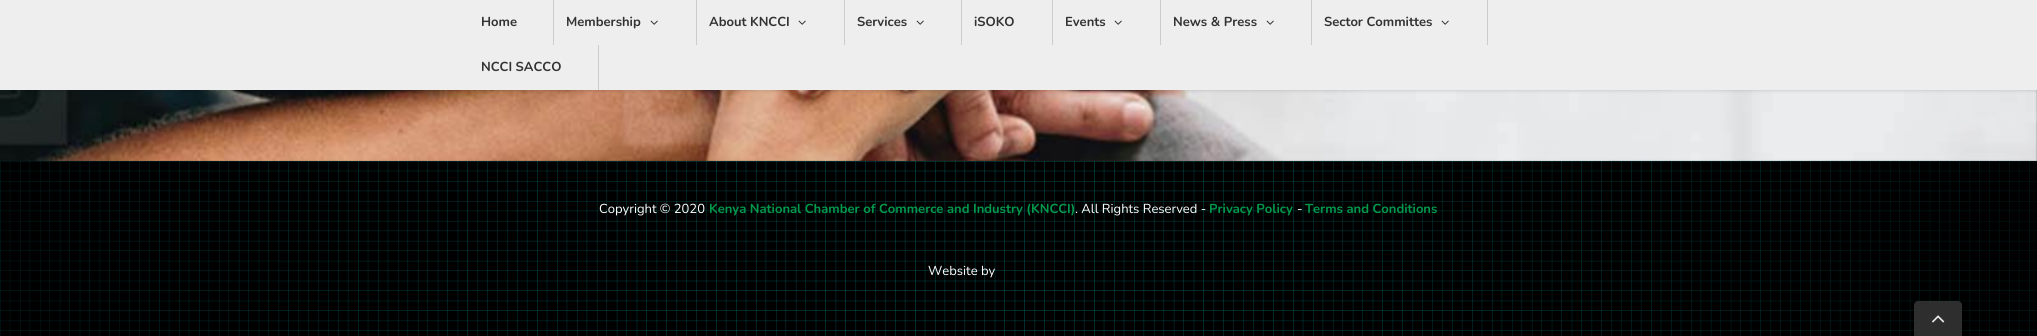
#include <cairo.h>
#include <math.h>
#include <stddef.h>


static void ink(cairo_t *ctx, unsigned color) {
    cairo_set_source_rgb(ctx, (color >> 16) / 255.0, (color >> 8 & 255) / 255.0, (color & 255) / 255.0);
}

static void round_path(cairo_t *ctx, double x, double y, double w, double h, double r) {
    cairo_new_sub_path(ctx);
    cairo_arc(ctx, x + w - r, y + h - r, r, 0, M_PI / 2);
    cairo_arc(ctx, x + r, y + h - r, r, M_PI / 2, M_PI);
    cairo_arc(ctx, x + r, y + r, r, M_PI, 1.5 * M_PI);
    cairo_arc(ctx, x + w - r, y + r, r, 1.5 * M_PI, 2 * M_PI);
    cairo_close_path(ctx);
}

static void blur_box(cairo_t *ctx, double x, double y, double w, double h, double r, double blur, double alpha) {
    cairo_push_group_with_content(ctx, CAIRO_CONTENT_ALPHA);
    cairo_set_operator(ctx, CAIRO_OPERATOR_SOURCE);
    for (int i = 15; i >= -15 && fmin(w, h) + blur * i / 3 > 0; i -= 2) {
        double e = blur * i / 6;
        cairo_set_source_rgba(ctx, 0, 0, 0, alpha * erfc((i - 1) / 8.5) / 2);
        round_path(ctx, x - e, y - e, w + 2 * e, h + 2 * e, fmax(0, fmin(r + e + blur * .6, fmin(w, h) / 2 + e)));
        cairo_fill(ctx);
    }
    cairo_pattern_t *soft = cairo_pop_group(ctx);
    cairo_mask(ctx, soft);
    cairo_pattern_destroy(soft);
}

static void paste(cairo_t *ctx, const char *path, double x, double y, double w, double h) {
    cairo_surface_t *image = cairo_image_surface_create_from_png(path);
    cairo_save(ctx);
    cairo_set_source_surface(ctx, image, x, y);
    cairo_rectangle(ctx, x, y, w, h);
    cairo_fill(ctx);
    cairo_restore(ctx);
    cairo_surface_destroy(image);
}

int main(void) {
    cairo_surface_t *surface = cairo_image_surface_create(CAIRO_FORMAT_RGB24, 2037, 336);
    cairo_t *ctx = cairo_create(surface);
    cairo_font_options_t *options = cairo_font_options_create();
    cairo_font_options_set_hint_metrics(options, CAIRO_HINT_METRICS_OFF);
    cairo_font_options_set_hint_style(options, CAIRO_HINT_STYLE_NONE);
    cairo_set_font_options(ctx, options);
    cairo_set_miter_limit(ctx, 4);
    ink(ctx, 0xFFFFFF);
    cairo_paint(ctx);
    paste(ctx, "media/2.png", 0, 90, 2037, 71);
    paste(ctx, "media/3.png", 0, 90, 2037, 71);
    ink(ctx, 0x000000);
    blur_box(ctx, 0, 1, 2037, 90, 0, 1.5, 0.12);
    ink(ctx, 0xEEEEEE);
    cairo_rectangle(ctx, 0, 0, 2037, 90);
    cairo_fill(ctx);
    ink(ctx, 0xCCCCCC);
    cairo_rectangle(ctx, 553, 0, 1, 45);
    cairo_fill(ctx);
    cairo_select_font_face(ctx, "Nunito", CAIRO_FONT_SLANT_NORMAL, CAIRO_FONT_WEIGHT_BOLD);
    cairo_set_font_size(ctx, 13);
    ink(ctx, 0x333333);
    cairo_move_to(ctx, 481, 26);
    cairo_show_text(ctx, "Home");
    ink(ctx, 0xCCCCCC);
    cairo_rectangle(ctx, 696, 0, 1, 45);
    cairo_fill(ctx);
    ink(ctx, 0x333333);
    cairo_move_to(ctx, 566, 26);
    cairo_show_text(ctx, "Membership");
    paste(ctx, "media/1.png", 650, 20, 8, 5);
    ink(ctx, 0xCCCCCC);
    cairo_rectangle(ctx, 844, 0, 1, 45);
    cairo_fill(ctx);
    ink(ctx, 0x333333);
    cairo_move_to(ctx, 709, 26);
    cairo_show_text(ctx, "About KNCCI");
    paste(ctx, "media/1.png", 798, 20, 8, 5);
    ink(ctx, 0xCCCCCC);
    cairo_rectangle(ctx, 961, 0, 1, 45);
    cairo_fill(ctx);
    ink(ctx, 0x333333);
    cairo_move_to(ctx, 857, 26);
    cairo_show_text(ctx, "Services");
    paste(ctx, "media/1.png", 916, 20, 8, 5);
    ink(ctx, 0xCCCCCC);
    cairo_rectangle(ctx, 1052, 0, 1, 45);
    cairo_fill(ctx);
    ink(ctx, 0x333333);
    cairo_move_to(ctx, 974, 26);
    cairo_show_text(ctx, "iSOKO");
    ink(ctx, 0xCCCCCC);
    cairo_rectangle(ctx, 1160, 0, 1, 45);
    cairo_fill(ctx);
    ink(ctx, 0x333333);
    cairo_move_to(ctx, 1065, 26);
    cairo_show_text(ctx, "Events");
    paste(ctx, "media/1.png", 1114, 20, 8, 5);
    ink(ctx, 0xCCCCCC);
    cairo_rectangle(ctx, 1311, 0, 1, 45);
    cairo_fill(ctx);
    ink(ctx, 0x333333);
    cairo_move_to(ctx, 1173, 26);
    cairo_show_text(ctx, "News & Press");
    paste(ctx, "media/1.png", 1266, 20, 8, 5);
    ink(ctx, 0xCCCCCC);
    cairo_rectangle(ctx, 1487, 0, 1, 45);
    cairo_fill(ctx);
    ink(ctx, 0x333333);
    cairo_move_to(ctx, 1324, 26);
    cairo_show_text(ctx, "Sector Committes");
    paste(ctx, "media/1.png", 1441, 20, 8, 5);
    ink(ctx, 0xCCCCCC);
    cairo_rectangle(ctx, 598, 45, 1, 45);
    cairo_fill(ctx);
    ink(ctx, 0x333333);
    cairo_move_to(ctx, 481, 71);
    cairo_show_text(ctx, "NCCI SACCO");
    paste(ctx, "media/4.png", 0, 161, 2037, 175);
    cairo_select_font_face(ctx, "Nunito", CAIRO_FONT_SLANT_NORMAL, CAIRO_FONT_WEIGHT_NORMAL);
    ink(ctx, 0xFFFFFF);
    cairo_move_to(ctx, 599, 213);
    cairo_show_text(ctx, "Copyright © 2020");
    cairo_select_font_face(ctx, "Nunito", CAIRO_FONT_SLANT_NORMAL, CAIRO_FONT_WEIGHT_BOLD);
    ink(ctx, 0x00994B);
    cairo_move_to(ctx, 709, 213);
    cairo_show_text(ctx, "Kenya National Chamber of Commerce and Industry (KNCCI)");
    cairo_select_font_face(ctx, "Nunito", CAIRO_FONT_SLANT_NORMAL, CAIRO_FONT_WEIGHT_NORMAL);
    ink(ctx, 0xFFFFFF);
    cairo_move_to(ctx, 1075, 213);
    cairo_show_text(ctx, ". All Rights Reserved -");
    cairo_select_font_face(ctx, "Nunito", CAIRO_FONT_SLANT_NORMAL, CAIRO_FONT_WEIGHT_BOLD);
    ink(ctx, 0x00994B);
    cairo_move_to(ctx, 1209, 213);
    cairo_show_text(ctx, "Privacy Policy");
    cairo_select_font_face(ctx, "Nunito", CAIRO_FONT_SLANT_NORMAL, CAIRO_FONT_WEIGHT_NORMAL);
    ink(ctx, 0xFFFFFF);
    cairo_move_to(ctx, 1297, 213);
    cairo_show_text(ctx, "-");
    cairo_select_font_face(ctx, "Nunito", CAIRO_FONT_SLANT_NORMAL, CAIRO_FONT_WEIGHT_BOLD);
    ink(ctx, 0x00994B);
    cairo_move_to(ctx, 1305, 213);
    cairo_show_text(ctx, "Terms and Conditions");
    cairo_select_font_face(ctx, "Nunito", CAIRO_FONT_SLANT_NORMAL, CAIRO_FONT_WEIGHT_NORMAL);
    ink(ctx, 0xFFFFFF);
    cairo_move_to(ctx, 928, 275);
    cairo_show_text(ctx, "Website by");
    cairo_set_source_rgba(ctx, 0.2, 0.2, 0.2, 0.9);
    cairo_new_path(ctx);
    cairo_move_to(ctx, 1918, 301);
    cairo_line_to(ctx, 1958, 301);
    cairo_curve_to(ctx, 1960, 301, 1962, 303, 1962, 305);
    cairo_line_to(ctx, 1962, 336);
    cairo_line_to(ctx, 1914, 336);
    cairo_line_to(ctx, 1914, 305);
    cairo_curve_to(ctx, 1914, 303, 1916, 301, 1918, 301);
    cairo_close_path(ctx);
    cairo_fill(ctx);
    paste(ctx, "media/5.png", 1932, 315, 13, 8);
    cairo_surface_write_to_png(surface, "image.png");
    cairo_font_options_destroy(options);
    cairo_destroy(ctx);
    cairo_surface_destroy(surface);
    return 0;
}
